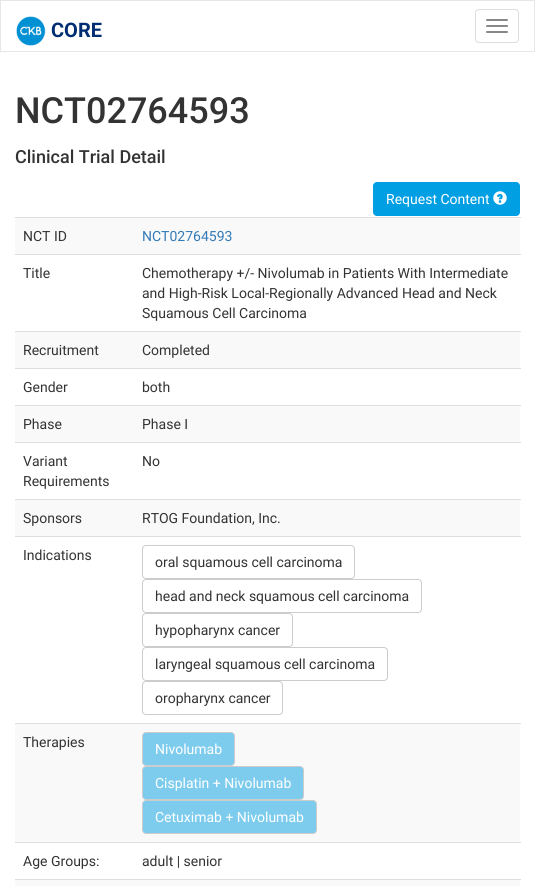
#include <cairo.h>
#include <math.h>
#include <stddef.h>

typedef struct { double x, y; const char *s; } line_t;

static void ink(cairo_t *ctx, unsigned color) {
    cairo_set_source_rgb(ctx, (color >> 16) / 255.0, (color >> 8 & 255) / 255.0, (color & 255) / 255.0);
}

static void round_path(cairo_t *ctx, double x, double y, double w, double h, double r) {
    cairo_new_sub_path(ctx);
    cairo_arc(ctx, x + w - r, y + h - r, r, 0, M_PI / 2);
    cairo_arc(ctx, x + r, y + h - r, r, M_PI / 2, M_PI);
    cairo_arc(ctx, x + r, y + r, r, M_PI, 1.5 * M_PI);
    cairo_arc(ctx, x + w - r, y + r, r, 1.5 * M_PI, 2 * M_PI);
    cairo_close_path(ctx);
}

static void paste(cairo_t *ctx, const char *path, double x, double y, double w, double h) {
    cairo_surface_t *image = cairo_image_surface_create_from_png(path);
    cairo_save(ctx);
    cairo_set_source_surface(ctx, image, x, y);
    cairo_rectangle(ctx, x, y, w, h);
    cairo_fill(ctx);
    cairo_restore(ctx);
    cairo_surface_destroy(image);
}

int main(void) {
    cairo_surface_t *surface = cairo_image_surface_create(CAIRO_FORMAT_RGB24, 535, 886);
    cairo_t *ctx = cairo_create(surface);
    cairo_font_options_t *options = cairo_font_options_create();
    cairo_font_options_set_hint_metrics(options, CAIRO_HINT_METRICS_OFF);
    cairo_font_options_set_hint_style(options, CAIRO_HINT_STYLE_NONE);
    cairo_set_font_options(ctx, options);
    cairo_set_miter_limit(ctx, 4);
    ink(ctx, 0xFFFFFF);
    cairo_paint(ctx);
    cairo_rectangle(ctx, 0.5, 0.5, 534, 51);
    ink(ctx, 0xE7E7E7);
    cairo_set_line_width(ctx, 1);
    cairo_stroke(ctx);
    paste(ctx, "media/1.png", 16, 16, 30, 30);
    cairo_select_font_face(ctx, "Roboto", CAIRO_FONT_SLANT_NORMAL, CAIRO_FONT_WEIGHT_BOLD);
    cairo_set_font_size(ctx, 20);
    ink(ctx, 0x002D72);
    cairo_move_to(ctx, 51, 37);
    cairo_show_text(ctx, "CORE");
    round_path(ctx, 475.5, 9.5, 43, 33, 3.5);
    ink(ctx, 0xDDDDDD);
    cairo_stroke(ctx);
    ink(ctx, 0x888888);
    round_path(ctx, 486, 19, 22, 2, 1);
    cairo_fill(ctx);
    round_path(ctx, 486, 25, 22, 2, 1);
    cairo_fill(ctx);
    round_path(ctx, 486, 31, 22, 2, 1);
    cairo_fill(ctx);
    cairo_select_font_face(ctx, "Roboto Medium", CAIRO_FONT_SLANT_NORMAL, CAIRO_FONT_WEIGHT_NORMAL);
    cairo_set_font_size(ctx, 36);
    ink(ctx, 0x333333);
    cairo_move_to(ctx, 15, 123);
    cairo_show_text(ctx, "NCT02764593");
    cairo_set_font_size(ctx, 18);
    cairo_move_to(ctx, 15, 163);
    cairo_show_text(ctx, "Clinical Trial Detail");
    ink(ctx, 0x009FE3);
    round_path(ctx, 373.5, 182.5, 146, 33, 3.5);
    cairo_fill_preserve(ctx);
    cairo_stroke(ctx);
    cairo_select_font_face(ctx, "Roboto", CAIRO_FONT_SLANT_NORMAL, CAIRO_FONT_WEIGHT_NORMAL);
    cairo_set_font_size(ctx, 14);
    ink(ctx, 0xFFFFFF);
    cairo_move_to(ctx, 386, 204);
    cairo_show_text(ctx, "Request Content");
    paste(ctx, "media/2.png", 493, 191, 14, 14);
    ink(ctx, 0xF9F9F9);
    cairo_rectangle(ctx, 15, 218, 505, 36);
    cairo_fill(ctx);
    ink(ctx, 0x333333);
    cairo_move_to(ctx, 23, 241);
    cairo_show_text(ctx, "NCT ID");
    ink(ctx, 0xDDDDDD);
    cairo_rectangle(ctx, 15, 217, 506, 1);
    cairo_fill(ctx);
    ink(ctx, 0x337AB7);
    cairo_move_to(ctx, 142, 241);
    cairo_show_text(ctx, "NCT02764593");
    ink(ctx, 0x333333);
    cairo_move_to(ctx, 23, 278);
    cairo_show_text(ctx, "Title");
    ink(ctx, 0xDDDDDD);
    cairo_rectangle(ctx, 15, 254, 506, 1);
    cairo_fill(ctx);
    ink(ctx, 0x333333);
    {
        static const line_t items[] = {
            {142, 278, "Chemotherapy +/- Nivolumab in Patients With Intermediate"},
            {142, 298, "and High-Risk Local-Regionally Advanced Head and Neck"},
            {142, 318, "Squamous Cell Carcinoma"},
        };
        for (size_t i = 0; i < sizeof items / sizeof *items; i++) {
            cairo_move_to(ctx, items[i].x, items[i].y);
            cairo_show_text(ctx, items[i].s);
        }
    }
    ink(ctx, 0xF9F9F9);
    cairo_rectangle(ctx, 15, 332, 505, 36);
    cairo_fill(ctx);
    ink(ctx, 0x333333);
    cairo_move_to(ctx, 23, 355);
    cairo_show_text(ctx, "Recruitment");
    ink(ctx, 0xDDDDDD);
    cairo_rectangle(ctx, 15, 331, 506, 1);
    cairo_fill(ctx);
    ink(ctx, 0x333333);
    cairo_move_to(ctx, 142, 355);
    cairo_show_text(ctx, "Completed");
    cairo_move_to(ctx, 23, 392);
    cairo_show_text(ctx, "Gender");
    ink(ctx, 0xDDDDDD);
    cairo_rectangle(ctx, 15, 368, 506, 1);
    cairo_fill(ctx);
    ink(ctx, 0x333333);
    cairo_move_to(ctx, 142, 392);
    cairo_show_text(ctx, "both");
    ink(ctx, 0xF9F9F9);
    cairo_rectangle(ctx, 15, 406, 505, 36);
    cairo_fill(ctx);
    ink(ctx, 0x333333);
    cairo_move_to(ctx, 23, 429);
    cairo_show_text(ctx, "Phase");
    ink(ctx, 0xDDDDDD);
    cairo_rectangle(ctx, 15, 405, 506, 1);
    cairo_fill(ctx);
    ink(ctx, 0x333333);
    {
        static const line_t items[] = {
            {142, 429, "Phase I"},
            {23, 466, "Variant"},
            {23, 486, "Requirements"},
        };
        for (size_t i = 0; i < sizeof items / sizeof *items; i++) {
            cairo_move_to(ctx, items[i].x, items[i].y);
            cairo_show_text(ctx, items[i].s);
        }
    }
    ink(ctx, 0xDDDDDD);
    cairo_rectangle(ctx, 15, 442, 506, 1);
    cairo_fill(ctx);
    ink(ctx, 0x333333);
    cairo_move_to(ctx, 142, 466);
    cairo_show_text(ctx, "No");
    ink(ctx, 0xF9F9F9);
    cairo_rectangle(ctx, 15, 500, 505, 36);
    cairo_fill(ctx);
    ink(ctx, 0x333333);
    cairo_move_to(ctx, 23, 523);
    cairo_show_text(ctx, "Sponsors");
    ink(ctx, 0xDDDDDD);
    cairo_rectangle(ctx, 15, 499, 506, 1);
    cairo_fill(ctx);
    ink(ctx, 0x333333);
    cairo_move_to(ctx, 142, 523);
    cairo_show_text(ctx, "RTOG Foundation, Inc.");
    cairo_move_to(ctx, 23, 560);
    cairo_show_text(ctx, "Indications");
    ink(ctx, 0xDDDDDD);
    cairo_rectangle(ctx, 15, 536, 506, 1);
    cairo_fill(ctx);
    round_path(ctx, 142.5, 545.5, 212, 33, 3.5);
    ink(ctx, 0xCCCCCC);
    cairo_stroke(ctx);
    ink(ctx, 0x333333);
    cairo_move_to(ctx, 155, 567);
    cairo_show_text(ctx, "oral squamous cell carcinoma");
    round_path(ctx, 142.5, 579.5, 279, 33, 3.5);
    ink(ctx, 0xCCCCCC);
    cairo_stroke(ctx);
    ink(ctx, 0x333333);
    cairo_move_to(ctx, 155, 601);
    cairo_show_text(ctx, "head and neck squamous cell carcinoma");
    round_path(ctx, 142.5, 613.5, 150, 33, 3.5);
    ink(ctx, 0xCCCCCC);
    cairo_stroke(ctx);
    ink(ctx, 0x333333);
    cairo_move_to(ctx, 155, 635);
    cairo_show_text(ctx, "hypopharynx cancer");
    round_path(ctx, 142.5, 647.5, 245, 33, 3.5);
    ink(ctx, 0xCCCCCC);
    cairo_stroke(ctx);
    ink(ctx, 0x333333);
    cairo_move_to(ctx, 155, 669);
    cairo_show_text(ctx, "laryngeal squamous cell carcinoma");
    round_path(ctx, 142.5, 681.5, 140, 33, 3.5);
    ink(ctx, 0xCCCCCC);
    cairo_stroke(ctx);
    ink(ctx, 0x333333);
    cairo_move_to(ctx, 155, 703);
    cairo_show_text(ctx, "oropharynx cancer");
    ink(ctx, 0xF9F9F9);
    cairo_rectangle(ctx, 15, 724, 505, 118);
    cairo_fill(ctx);
    ink(ctx, 0x333333);
    cairo_move_to(ctx, 23, 747);
    cairo_show_text(ctx, "Therapies");
    ink(ctx, 0xDDDDDD);
    cairo_rectangle(ctx, 15, 723, 506, 1);
    cairo_fill(ctx);
    ink(ctx, 0x7DCCEE);
    round_path(ctx, 142.5, 732.5, 92, 33, 3.5);
    cairo_fill_preserve(ctx);
    ink(ctx, 0xCCCCCC);
    cairo_stroke(ctx);
    ink(ctx, 0xFFFFFF);
    cairo_move_to(ctx, 155, 754);
    cairo_show_text(ctx, "Nivolumab");
    ink(ctx, 0x7DCCEE);
    round_path(ctx, 142.5, 766.5, 161, 33, 3.5);
    cairo_fill_preserve(ctx);
    ink(ctx, 0xCCCCCC);
    cairo_stroke(ctx);
    ink(ctx, 0xFFFFFF);
    cairo_move_to(ctx, 155, 788);
    cairo_show_text(ctx, "Cisplatin + Nivolumab");
    ink(ctx, 0x7DCCEE);
    round_path(ctx, 142.5, 800.5, 174, 33, 3.5);
    cairo_fill_preserve(ctx);
    ink(ctx, 0xCCCCCC);
    cairo_stroke(ctx);
    ink(ctx, 0xFFFFFF);
    cairo_move_to(ctx, 155, 822);
    cairo_show_text(ctx, "Cetuximab + Nivolumab");
    ink(ctx, 0x333333);
    cairo_move_to(ctx, 23, 866);
    cairo_show_text(ctx, "Age Groups:");
    ink(ctx, 0xDDDDDD);
    cairo_rectangle(ctx, 15, 842, 506, 1);
    cairo_fill(ctx);
    ink(ctx, 0x333333);
    cairo_move_to(ctx, 142, 866);
    cairo_show_text(ctx, "adult | senior");
    ink(ctx, 0xF9F9F9);
    cairo_rectangle(ctx, 15, 880, 505, 6);
    cairo_fill(ctx);
    ink(ctx, 0xDDDDDD);
    cairo_rectangle(ctx, 15, 879, 506, 1);
    cairo_fill(ctx);
    cairo_surface_write_to_png(surface, "image.png");
    cairo_font_options_destroy(options);
    cairo_destroy(ctx);
    cairo_surface_destroy(surface);
    return 0;
}
